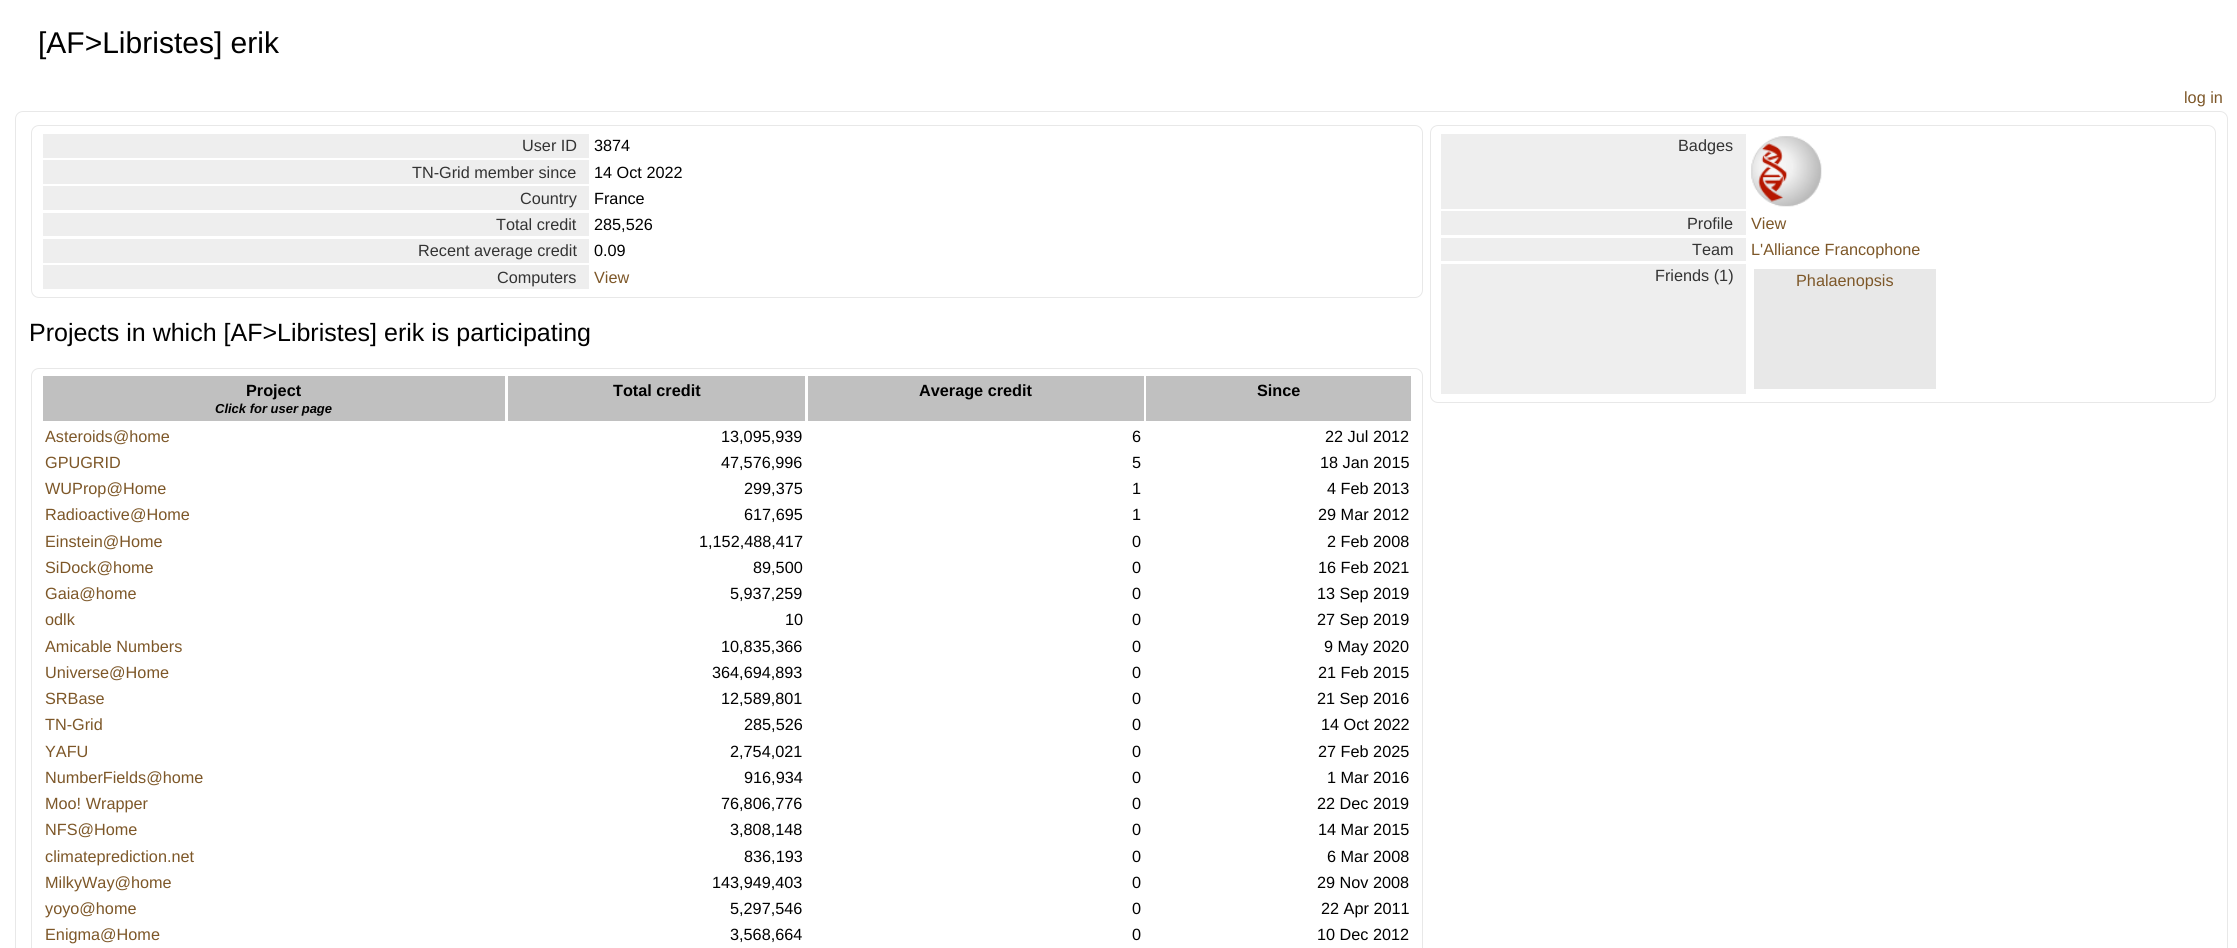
#include <cairo.h>
#include <math.h>
#include <stddef.h>

typedef struct { double x, y; const char *s; } line_t;

static void ink(cairo_t *ctx, unsigned color) {
    cairo_set_source_rgb(ctx, (color >> 16) / 255.0, (color >> 8 & 255) / 255.0, (color & 255) / 255.0);
}

static void round_path(cairo_t *ctx, double x, double y, double w, double h, double r) {
    cairo_new_sub_path(ctx);
    cairo_arc(ctx, x + w - r, y + h - r, r, 0, M_PI / 2);
    cairo_arc(ctx, x + r, y + h - r, r, M_PI / 2, M_PI);
    cairo_arc(ctx, x + r, y + r, r, M_PI, 1.5 * M_PI);
    cairo_arc(ctx, x + w - r, y + r, r, 1.5 * M_PI, 2 * M_PI);
    cairo_close_path(ctx);
}

static void paste(cairo_t *ctx, const char *path, double x, double y, double w, double h) {
    cairo_surface_t *image = cairo_image_surface_create_from_png(path);
    cairo_save(ctx);
    cairo_set_source_surface(ctx, image, x, y);
    cairo_rectangle(ctx, x, y, w, h);
    cairo_fill(ctx);
    cairo_restore(ctx);
    cairo_surface_destroy(image);
}

int main(void) {
    cairo_surface_t *surface = cairo_image_surface_create(CAIRO_FORMAT_RGB24, 2237, 948);
    cairo_t *ctx = cairo_create(surface);
    cairo_font_options_t *options = cairo_font_options_create();
    cairo_font_options_set_hint_metrics(options, CAIRO_HINT_METRICS_OFF);
    cairo_font_options_set_hint_style(options, CAIRO_HINT_STYLE_NONE);
    cairo_set_font_options(ctx, options);
    cairo_set_miter_limit(ctx, 4);
    ink(ctx, 0xFFFFFF);
    cairo_paint(ctx);
    cairo_select_font_face(ctx, "Liberation Sans", CAIRO_FONT_SLANT_NORMAL, CAIRO_FONT_WEIGHT_NORMAL);
    cairo_set_font_size(ctx, 30);
    ink(ctx, 0x000000);
    cairo_move_to(ctx, 38, 53);
    cairo_show_text(ctx, "[AF>Libristes] erik");
    cairo_set_font_size(ctx, 16.25);
    ink(ctx, 0x7D5728);
    cairo_move_to(ctx, 2184, 103);
    cairo_show_text(ctx, "log in");
    round_path(ctx, 15.5, 111.5, 2212, 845, 7.5);
    ink(ctx, 0xE8E8E8);
    cairo_set_line_width(ctx, 1);
    cairo_stroke(ctx);
    round_path(ctx, 31.5, 125.5, 1391, 172, 7.5);
    cairo_stroke(ctx);
    ink(ctx, 0xEEEEEE);
    cairo_rectangle(ctx, 43, 134, 546, 24);
    cairo_fill(ctx);
    ink(ctx, 0x333333);
    cairo_move_to(ctx, 522, 151);
    cairo_show_text(ctx, "User ID");
    ink(ctx, 0x000000);
    cairo_move_to(ctx, 594, 151);
    cairo_show_text(ctx, "3874");
    ink(ctx, 0xEEEEEE);
    cairo_rectangle(ctx, 43, 160, 546, 24);
    cairo_fill(ctx);
    ink(ctx, 0x333333);
    cairo_move_to(ctx, 412, 178);
    cairo_show_text(ctx, "TN-Grid member since");
    ink(ctx, 0x000000);
    cairo_move_to(ctx, 594, 178);
    cairo_show_text(ctx, "14 Oct 2022");
    ink(ctx, 0xEEEEEE);
    cairo_rectangle(ctx, 43, 186, 546, 24);
    cairo_fill(ctx);
    ink(ctx, 0x333333);
    cairo_move_to(ctx, 520, 204);
    cairo_show_text(ctx, "Country");
    ink(ctx, 0x000000);
    cairo_move_to(ctx, 594, 204);
    cairo_show_text(ctx, "France");
    ink(ctx, 0xEEEEEE);
    cairo_rectangle(ctx, 43, 213, 546, 23);
    cairo_fill(ctx);
    ink(ctx, 0x333333);
    cairo_move_to(ctx, 496, 230);
    cairo_show_text(ctx, "Total credit");
    ink(ctx, 0x000000);
    cairo_move_to(ctx, 594, 230);
    cairo_show_text(ctx, "285,526");
    ink(ctx, 0xEEEEEE);
    cairo_rectangle(ctx, 43, 239, 546, 24);
    cairo_fill(ctx);
    ink(ctx, 0x333333);
    cairo_move_to(ctx, 418, 256);
    cairo_show_text(ctx, "Recent average credit");
    ink(ctx, 0x000000);
    cairo_move_to(ctx, 594, 256);
    cairo_show_text(ctx, "0.09");
    ink(ctx, 0xEEEEEE);
    cairo_rectangle(ctx, 43, 265, 546, 24);
    cairo_fill(ctx);
    ink(ctx, 0x333333);
    cairo_move_to(ctx, 497, 283);
    cairo_show_text(ctx, "Computers");
    ink(ctx, 0x7D5728);
    cairo_move_to(ctx, 594, 283);
    cairo_show_text(ctx, "View");
    cairo_set_font_size(ctx, 25);
    ink(ctx, 0x000000);
    cairo_move_to(ctx, 29, 341);
    cairo_show_text(ctx, "Projects in which [AF>Libristes] erik is participating");
    round_path(ctx, 31.5, 368.5, 1391, 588, 7.5);
    ink(ctx, 0xE8E8E8);
    cairo_stroke(ctx);
    ink(ctx, 0xC0C0C0);
    cairo_rectangle(ctx, 43, 376, 462, 45);
    cairo_fill(ctx);
    cairo_select_font_face(ctx, "Liberation Sans", CAIRO_FONT_SLANT_NORMAL, CAIRO_FONT_WEIGHT_BOLD);
    cairo_set_font_size(ctx, 16.25);
    ink(ctx, 0x000000);
    cairo_move_to(ctx, 246, 396);
    cairo_show_text(ctx, "Project");
    cairo_select_font_face(ctx, "Liberation Sans", CAIRO_FONT_SLANT_ITALIC, CAIRO_FONT_WEIGHT_BOLD);
    cairo_set_font_size(ctx, 13);
    cairo_move_to(ctx, 215, 413);
    cairo_show_text(ctx, "Click for user page");
    ink(ctx, 0xC0C0C0);
    cairo_rectangle(ctx, 508, 376, 297, 45);
    cairo_fill(ctx);
    cairo_select_font_face(ctx, "Liberation Sans", CAIRO_FONT_SLANT_NORMAL, CAIRO_FONT_WEIGHT_BOLD);
    cairo_set_font_size(ctx, 16.25);
    ink(ctx, 0x000000);
    cairo_move_to(ctx, 613, 396);
    cairo_show_text(ctx, "Total credit");
    ink(ctx, 0xC0C0C0);
    cairo_rectangle(ctx, 808, 376, 336, 45);
    cairo_fill(ctx);
    ink(ctx, 0x000000);
    cairo_move_to(ctx, 919, 396);
    cairo_show_text(ctx, "Average credit");
    ink(ctx, 0xC0C0C0);
    cairo_rectangle(ctx, 1146, 376, 265, 45);
    cairo_fill(ctx);
    ink(ctx, 0x000000);
    cairo_move_to(ctx, 1257, 396);
    cairo_show_text(ctx, "Since");
    cairo_select_font_face(ctx, "Liberation Sans", CAIRO_FONT_SLANT_NORMAL, CAIRO_FONT_WEIGHT_NORMAL);
    ink(ctx, 0x7D5728);
    cairo_move_to(ctx, 45, 442);
    cairo_show_text(ctx, "Asteroids@home");
    ink(ctx, 0x000000);
    {
        static const line_t items[] = {
            {721, 442, "13,095,939"},
            {1132, 442, "6"},
            {1325, 442, "22 Jul 2012"},
        };
        for (size_t i = 0; i < sizeof items / sizeof *items; i++) {
            cairo_move_to(ctx, items[i].x, items[i].y);
            cairo_show_text(ctx, items[i].s);
        }
    }
    ink(ctx, 0x7D5728);
    cairo_move_to(ctx, 45, 468);
    cairo_show_text(ctx, "GPUGRID");
    ink(ctx, 0x000000);
    {
        static const line_t items[] = {
            {721, 468, "47,576,996"},
            {1132, 468, "5"},
            {1320, 468, "18 Jan 2015"},
        };
        for (size_t i = 0; i < sizeof items / sizeof *items; i++) {
            cairo_move_to(ctx, items[i].x, items[i].y);
            cairo_show_text(ctx, items[i].s);
        }
    }
    ink(ctx, 0x7D5728);
    cairo_move_to(ctx, 45, 494);
    cairo_show_text(ctx, "WUProp@Home");
    ink(ctx, 0x000000);
    {
        static const line_t items[] = {
            {744, 494, "299,375"},
            {1132, 494, "1"},
            {1327, 494, "4 Feb 2013"},
        };
        for (size_t i = 0; i < sizeof items / sizeof *items; i++) {
            cairo_move_to(ctx, items[i].x, items[i].y);
            cairo_show_text(ctx, items[i].s);
        }
    }
    ink(ctx, 0x7D5728);
    cairo_move_to(ctx, 45, 520);
    cairo_show_text(ctx, "Radioactive@Home");
    ink(ctx, 0x000000);
    {
        static const line_t items[] = {
            {744, 520, "617,695"},
            {1132, 520, "1"},
            {1318, 520, "29 Mar 2012"},
        };
        for (size_t i = 0; i < sizeof items / sizeof *items; i++) {
            cairo_move_to(ctx, items[i].x, items[i].y);
            cairo_show_text(ctx, items[i].s);
        }
    }
    ink(ctx, 0x7D5728);
    cairo_move_to(ctx, 45, 547);
    cairo_show_text(ctx, "Einstein@Home");
    ink(ctx, 0x000000);
    {
        static const line_t items[] = {
            {699, 547, "1,152,488,417"},
            {1132, 547, "0"},
            {1327, 547, "2 Feb 2008"},
        };
        for (size_t i = 0; i < sizeof items / sizeof *items; i++) {
            cairo_move_to(ctx, items[i].x, items[i].y);
            cairo_show_text(ctx, items[i].s);
        }
    }
    ink(ctx, 0x7D5728);
    cairo_move_to(ctx, 45, 573);
    cairo_show_text(ctx, "SiDock@home");
    ink(ctx, 0x000000);
    {
        static const line_t items[] = {
            {753, 573, "89,500"},
            {1132, 573, "0"},
            {1318, 573, "16 Feb 2021"},
        };
        for (size_t i = 0; i < sizeof items / sizeof *items; i++) {
            cairo_move_to(ctx, items[i].x, items[i].y);
            cairo_show_text(ctx, items[i].s);
        }
    }
    ink(ctx, 0x7D5728);
    cairo_move_to(ctx, 45, 599);
    cairo_show_text(ctx, "Gaia@home");
    ink(ctx, 0x000000);
    {
        static const line_t items[] = {
            {730, 599, "5,937,259"},
            {1132, 599, "0"},
            {1317, 599, "13 Sep 2019"},
        };
        for (size_t i = 0; i < sizeof items / sizeof *items; i++) {
            cairo_move_to(ctx, items[i].x, items[i].y);
            cairo_show_text(ctx, items[i].s);
        }
    }
    ink(ctx, 0x7D5728);
    cairo_move_to(ctx, 45, 625);
    cairo_show_text(ctx, "odlk");
    ink(ctx, 0x000000);
    {
        static const line_t items[] = {
            {785, 625, "10"},
            {1132, 625, "0"},
            {1317, 625, "27 Sep 2019"},
        };
        for (size_t i = 0; i < sizeof items / sizeof *items; i++) {
            cairo_move_to(ctx, items[i].x, items[i].y);
            cairo_show_text(ctx, items[i].s);
        }
    }
    ink(ctx, 0x7D5728);
    cairo_move_to(ctx, 45, 652);
    cairo_show_text(ctx, "Amicable Numbers");
    ink(ctx, 0x000000);
    {
        static const line_t items[] = {
            {721, 652, "10,835,366"},
            {1132, 652, "0"},
            {1324, 652, "9 May 2020"},
        };
        for (size_t i = 0; i < sizeof items / sizeof *items; i++) {
            cairo_move_to(ctx, items[i].x, items[i].y);
            cairo_show_text(ctx, items[i].s);
        }
    }
    ink(ctx, 0x7D5728);
    cairo_move_to(ctx, 45, 678);
    cairo_show_text(ctx, "Universe@Home");
    ink(ctx, 0x000000);
    {
        static const line_t items[] = {
            {712, 678, "364,694,893"},
            {1132, 678, "0"},
            {1318, 678, "21 Feb 2015"},
        };
        for (size_t i = 0; i < sizeof items / sizeof *items; i++) {
            cairo_move_to(ctx, items[i].x, items[i].y);
            cairo_show_text(ctx, items[i].s);
        }
    }
    ink(ctx, 0x7D5728);
    cairo_move_to(ctx, 45, 704);
    cairo_show_text(ctx, "SRBase");
    ink(ctx, 0x000000);
    {
        static const line_t items[] = {
            {721, 704, "12,589,801"},
            {1132, 704, "0"},
            {1317, 704, "21 Sep 2016"},
        };
        for (size_t i = 0; i < sizeof items / sizeof *items; i++) {
            cairo_move_to(ctx, items[i].x, items[i].y);
            cairo_show_text(ctx, items[i].s);
        }
    }
    ink(ctx, 0x7D5728);
    cairo_move_to(ctx, 45, 730);
    cairo_show_text(ctx, "TN-Grid");
    ink(ctx, 0x000000);
    {
        static const line_t items[] = {
            {744, 730, "285,526"},
            {1132, 730, "0"},
            {1321, 730, "14 Oct 2022"},
        };
        for (size_t i = 0; i < sizeof items / sizeof *items; i++) {
            cairo_move_to(ctx, items[i].x, items[i].y);
            cairo_show_text(ctx, items[i].s);
        }
    }
    ink(ctx, 0x7D5728);
    cairo_move_to(ctx, 45, 757);
    cairo_show_text(ctx, "YAFU");
    ink(ctx, 0x000000);
    {
        static const line_t items[] = {
            {730, 757, "2,754,021"},
            {1132, 757, "0"},
            {1318, 757, "27 Feb 2025"},
        };
        for (size_t i = 0; i < sizeof items / sizeof *items; i++) {
            cairo_move_to(ctx, items[i].x, items[i].y);
            cairo_show_text(ctx, items[i].s);
        }
    }
    ink(ctx, 0x7D5728);
    cairo_move_to(ctx, 45, 783);
    cairo_show_text(ctx, "NumberFields@home");
    ink(ctx, 0x000000);
    {
        static const line_t items[] = {
            {744, 783, "916,934"},
            {1132, 783, "0"},
            {1327, 783, "1 Mar 2016"},
        };
        for (size_t i = 0; i < sizeof items / sizeof *items; i++) {
            cairo_move_to(ctx, items[i].x, items[i].y);
            cairo_show_text(ctx, items[i].s);
        }
    }
    ink(ctx, 0x7D5728);
    cairo_move_to(ctx, 45, 809);
    cairo_show_text(ctx, "Moo! Wrapper");
    ink(ctx, 0x000000);
    {
        static const line_t items[] = {
            {721, 809, "76,806,776"},
            {1132, 809, "0"},
            {1317, 809, "22 Dec 2019"},
        };
        for (size_t i = 0; i < sizeof items / sizeof *items; i++) {
            cairo_move_to(ctx, items[i].x, items[i].y);
            cairo_show_text(ctx, items[i].s);
        }
    }
    ink(ctx, 0x7D5728);
    cairo_move_to(ctx, 45, 835);
    cairo_show_text(ctx, "NFS@Home");
    ink(ctx, 0x000000);
    {
        static const line_t items[] = {
            {730, 835, "3,808,148"},
            {1132, 835, "0"},
            {1318, 835, "14 Mar 2015"},
        };
        for (size_t i = 0; i < sizeof items / sizeof *items; i++) {
            cairo_move_to(ctx, items[i].x, items[i].y);
            cairo_show_text(ctx, items[i].s);
        }
    }
    ink(ctx, 0x7D5728);
    cairo_move_to(ctx, 45, 862);
    cairo_show_text(ctx, "climateprediction.net");
    ink(ctx, 0x000000);
    {
        static const line_t items[] = {
            {744, 862, "836,193"},
            {1132, 862, "0"},
            {1327, 862, "6 Mar 2008"},
        };
        for (size_t i = 0; i < sizeof items / sizeof *items; i++) {
            cairo_move_to(ctx, items[i].x, items[i].y);
            cairo_show_text(ctx, items[i].s);
        }
    }
    ink(ctx, 0x7D5728);
    cairo_move_to(ctx, 45, 888);
    cairo_show_text(ctx, "MilkyWay@home");
    ink(ctx, 0x000000);
    {
        static const line_t items[] = {
            {712, 888, "143,949,403"},
            {1132, 888, "0"},
            {1317, 888, "29 Nov 2008"},
        };
        for (size_t i = 0; i < sizeof items / sizeof *items; i++) {
            cairo_move_to(ctx, items[i].x, items[i].y);
            cairo_show_text(ctx, items[i].s);
        }
    }
    ink(ctx, 0x7D5728);
    cairo_move_to(ctx, 45, 914);
    cairo_show_text(ctx, "yoyo@home");
    ink(ctx, 0x000000);
    {
        static const line_t items[] = {
            {730, 914, "5,297,546"},
            {1132, 914, "0"},
            {1321, 914, "22 Apr 2011"},
        };
        for (size_t i = 0; i < sizeof items / sizeof *items; i++) {
            cairo_move_to(ctx, items[i].x, items[i].y);
            cairo_show_text(ctx, items[i].s);
        }
    }
    ink(ctx, 0x7D5728);
    cairo_move_to(ctx, 45, 940);
    cairo_show_text(ctx, "Enigma@Home");
    ink(ctx, 0x000000);
    {
        static const line_t items[] = {
            {730, 940, "3,568,664"},
            {1132, 940, "0"},
            {1317, 940, "10 Dec 2012"},
        };
        for (size_t i = 0; i < sizeof items / sizeof *items; i++) {
            cairo_move_to(ctx, items[i].x, items[i].y);
            cairo_show_text(ctx, items[i].s);
        }
    }
    round_path(ctx, 1430.5, 125.5, 785, 277, 7.5);
    ink(ctx, 0xE8E8E8);
    cairo_stroke(ctx);
    ink(ctx, 0xEEEEEE);
    cairo_rectangle(ctx, 1441, 134, 305, 75);
    cairo_fill(ctx);
    ink(ctx, 0x333333);
    cairo_move_to(ctx, 1678, 151);
    cairo_show_text(ctx, "Badges");
    paste(ctx, "media/1.png", 1751, 136, 71, 71);
    ink(ctx, 0xEEEEEE);
    cairo_rectangle(ctx, 1441, 211, 305, 24);
    cairo_fill(ctx);
    ink(ctx, 0x333333);
    cairo_move_to(ctx, 1687, 229);
    cairo_show_text(ctx, "Profile");
    ink(ctx, 0x7D5728);
    cairo_move_to(ctx, 1751, 229);
    cairo_show_text(ctx, "View");
    ink(ctx, 0xEEEEEE);
    cairo_rectangle(ctx, 1441, 238, 305, 23);
    cairo_fill(ctx);
    ink(ctx, 0x333333);
    cairo_move_to(ctx, 1692, 255);
    cairo_show_text(ctx, "Team");
    ink(ctx, 0x7D5728);
    cairo_move_to(ctx, 1751, 255);
    cairo_show_text(ctx, "L'Alliance Francophone");
    ink(ctx, 0xEEEEEE);
    cairo_rectangle(ctx, 1441, 264, 305, 130);
    cairo_fill(ctx);
    ink(ctx, 0x333333);
    cairo_move_to(ctx, 1655, 281);
    cairo_show_text(ctx, "Friends (1)");
    ink(ctx, 0xE8E8E8);
    cairo_rectangle(ctx, 1754, 269, 182, 120);
    cairo_fill(ctx);
    ink(ctx, 0x7D5728);
    cairo_move_to(ctx, 1796, 286);
    cairo_show_text(ctx, "Phalaenopsis");
    cairo_surface_write_to_png(surface, "image.png");
    cairo_font_options_destroy(options);
    cairo_destroy(ctx);
    cairo_surface_destroy(surface);
    return 0;
}
